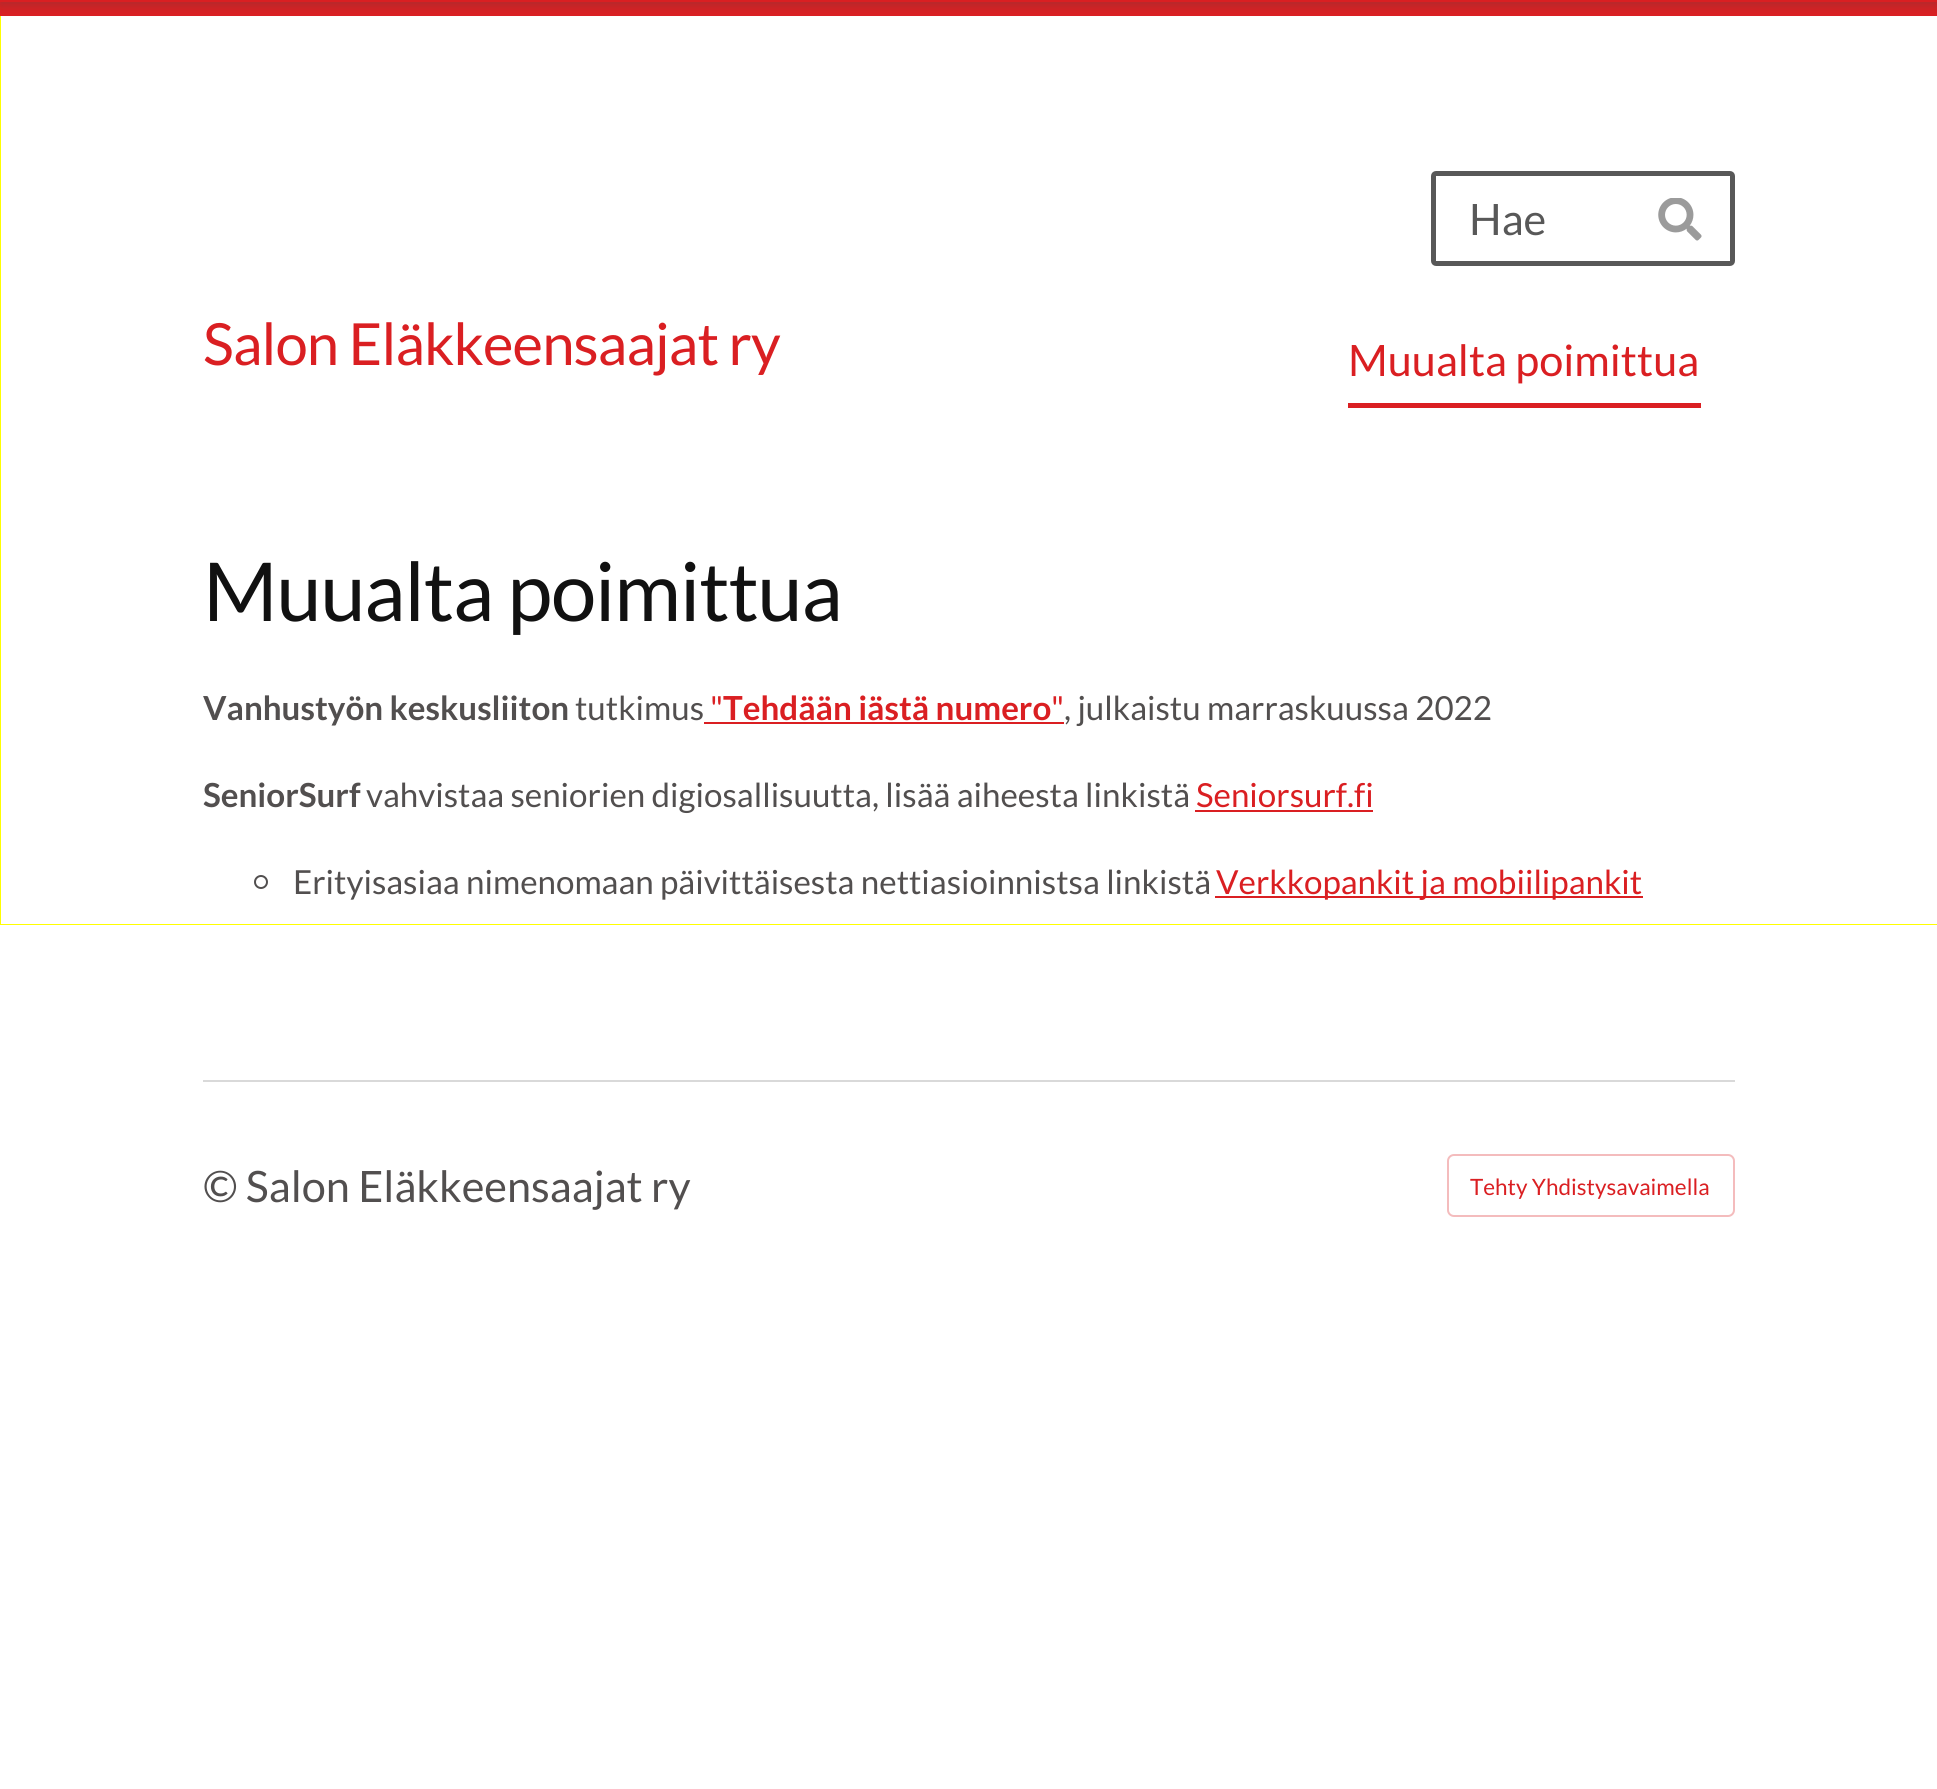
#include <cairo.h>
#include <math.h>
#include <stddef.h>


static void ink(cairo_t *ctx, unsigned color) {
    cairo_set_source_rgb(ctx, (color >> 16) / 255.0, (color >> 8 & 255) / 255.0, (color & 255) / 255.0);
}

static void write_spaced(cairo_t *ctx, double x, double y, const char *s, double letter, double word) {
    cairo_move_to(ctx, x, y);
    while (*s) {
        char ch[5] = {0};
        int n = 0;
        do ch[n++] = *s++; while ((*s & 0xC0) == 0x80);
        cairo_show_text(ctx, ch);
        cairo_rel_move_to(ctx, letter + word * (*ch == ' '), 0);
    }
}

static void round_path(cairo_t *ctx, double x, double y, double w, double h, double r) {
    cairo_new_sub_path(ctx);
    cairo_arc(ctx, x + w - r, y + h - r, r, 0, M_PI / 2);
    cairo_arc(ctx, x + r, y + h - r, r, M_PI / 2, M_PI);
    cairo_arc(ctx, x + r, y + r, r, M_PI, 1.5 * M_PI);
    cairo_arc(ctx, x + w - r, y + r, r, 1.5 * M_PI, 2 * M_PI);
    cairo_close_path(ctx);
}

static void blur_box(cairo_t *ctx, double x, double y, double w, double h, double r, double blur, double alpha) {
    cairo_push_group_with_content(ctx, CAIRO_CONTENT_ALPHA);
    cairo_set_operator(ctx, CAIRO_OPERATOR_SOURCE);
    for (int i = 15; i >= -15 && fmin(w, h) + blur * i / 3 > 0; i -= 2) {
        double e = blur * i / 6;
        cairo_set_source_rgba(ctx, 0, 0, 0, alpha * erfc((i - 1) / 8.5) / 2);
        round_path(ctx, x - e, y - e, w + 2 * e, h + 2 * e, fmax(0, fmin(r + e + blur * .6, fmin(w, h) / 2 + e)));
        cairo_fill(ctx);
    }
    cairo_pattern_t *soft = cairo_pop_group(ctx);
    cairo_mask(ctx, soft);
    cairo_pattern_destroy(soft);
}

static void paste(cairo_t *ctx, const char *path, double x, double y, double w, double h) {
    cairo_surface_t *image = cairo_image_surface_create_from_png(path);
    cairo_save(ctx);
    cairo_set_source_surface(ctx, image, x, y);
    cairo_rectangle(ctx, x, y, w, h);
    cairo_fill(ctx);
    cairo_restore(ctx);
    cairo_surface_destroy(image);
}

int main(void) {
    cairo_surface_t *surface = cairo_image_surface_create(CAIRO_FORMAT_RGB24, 1937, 1789);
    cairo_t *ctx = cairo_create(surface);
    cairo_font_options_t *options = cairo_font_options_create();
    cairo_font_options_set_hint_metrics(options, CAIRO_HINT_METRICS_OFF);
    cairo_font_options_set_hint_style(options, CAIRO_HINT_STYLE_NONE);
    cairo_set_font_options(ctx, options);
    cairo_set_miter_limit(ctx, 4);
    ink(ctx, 0xFFFFFF);
    cairo_paint(ctx);
    ink(ctx, 0xDA1F22);
    cairo_rectangle(ctx, 0, 2, 1937, 14);
    cairo_fill(ctx);
    cairo_save(ctx);
    cairo_rectangle(ctx, 0, 16, 1937, 909);
    cairo_clip(ctx);
    cairo_rectangle(ctx, -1.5, 13.5, 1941, 913);
    ink(ctx, 0xFFFF00);
    cairo_set_line_width(ctx, 5);
    cairo_stroke(ctx);
    cairo_restore(ctx);
    ink(ctx, 0x3B4A4A);
    blur_box(ctx, 0, -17, 1937, 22, 0, 5.5, 0.3);
    ink(ctx, 0xDA1F22);
    cairo_rectangle(ctx, 0, 0, 1937, 2);
    cairo_fill(ctx);
    round_path(ctx, 1433.5, 173.5, 299, 90, 2.5);
    ink(ctx, 0x585858);
    cairo_set_line_width(ctx, 5);
    cairo_stroke(ctx);
    cairo_select_font_face(ctx, "Lato", CAIRO_FONT_SLANT_NORMAL, CAIRO_FONT_WEIGHT_NORMAL);
    cairo_set_font_size(ctx, 43.25);
    cairo_move_to(ctx, 1469, 235);
    cairo_show_text(ctx, "Hae");
    paste(ctx, "media/1.png", 1658, 198, 44, 43);
    cairo_set_font_size(ctx, 58.1);
    ink(ctx, 0xDA1F22);
    write_spaced(ctx, 203, 365, "Salon Eläkkeensaajat ry", -0.9, 0);
    cairo_set_font_size(ctx, 43.25);
    cairo_move_to(ctx, 1348, 376);
    cairo_show_text(ctx, "Muualta poimittua");
    cairo_rectangle(ctx, 1348, 403, 353, 5);
    cairo_fill(ctx);
    cairo_set_font_size(ctx, 81.25);
    ink(ctx, 0x111111);
    write_spaced(ctx, 203, 621, "Muualta poimittua", -1.25, 0);
    cairo_select_font_face(ctx, "Lato", CAIRO_FONT_SLANT_NORMAL, CAIRO_FONT_WEIGHT_BOLD);
    cairo_set_font_size(ctx, 33.15);
    ink(ctx, 0x524F4F);
    cairo_move_to(ctx, 203, 720);
    cairo_show_text(ctx, "Vanhustyön keskusliiton");
    cairo_select_font_face(ctx, "Lato", CAIRO_FONT_SLANT_NORMAL, CAIRO_FONT_WEIGHT_NORMAL);
    cairo_move_to(ctx, 575, 720);
    cairo_show_text(ctx, "tutkimus");
    ink(ctx, 0xDA1F22);
    cairo_move_to(ctx, 710, 720);
    cairo_show_text(ctx, "\"");
    cairo_select_font_face(ctx, "Lato", CAIRO_FONT_SLANT_NORMAL, CAIRO_FONT_WEIGHT_BOLD);
    cairo_move_to(ctx, 723, 720);
    cairo_show_text(ctx, "Tehdään iästä numero");
    cairo_rectangle(ctx, 704, 722, 360, 2);
    cairo_fill(ctx);
    cairo_select_font_face(ctx, "Lato", CAIRO_FONT_SLANT_NORMAL, CAIRO_FONT_WEIGHT_NORMAL);
    cairo_move_to(ctx, 1051, 720);
    cairo_show_text(ctx, "\"");
    ink(ctx, 0x524F4F);
    cairo_move_to(ctx, 1064, 720);
    cairo_show_text(ctx, ", julkaistu marraskuussa 2022");
    cairo_select_font_face(ctx, "Lato", CAIRO_FONT_SLANT_NORMAL, CAIRO_FONT_WEIGHT_BOLD);
    cairo_move_to(ctx, 203, 807);
    cairo_show_text(ctx, "SeniorSurf");
    cairo_select_font_face(ctx, "Lato", CAIRO_FONT_SLANT_NORMAL, CAIRO_FONT_WEIGHT_NORMAL);
    cairo_move_to(ctx, 366, 807);
    cairo_show_text(ctx, "vahvistaa seniorien digiosallisuutta, lisää aiheesta linkistä");
    ink(ctx, 0xDA1F22);
    cairo_move_to(ctx, 1196, 807);
    cairo_show_text(ctx, "Seniorsurf.fi");
    cairo_rectangle(ctx, 1195, 810, 178, 2);
    cairo_fill(ctx);
    cairo_arc(ctx, 261, 882, 6, 0, 2 * M_PI);
    ink(ctx, 0x524F4F);
    cairo_set_line_width(ctx, 2);
    cairo_stroke(ctx);
    cairo_move_to(ctx, 293, 894);
    cairo_show_text(ctx, "Erityisasiaa nimenomaan päivittäisesta nettiasioinnistsa linkistä");
    ink(ctx, 0xDA1F22);
    cairo_rectangle(ctx, 1215, 896, 428, 2);
    cairo_fill(ctx);
    cairo_move_to(ctx, 1216, 894);
    cairo_show_text(ctx, "Verkkopankit ja mobiilipankit");
    ink(ctx, 0xD9D9D9);
    cairo_rectangle(ctx, 203, 1080, 1532, 2);
    cairo_fill(ctx);
    cairo_set_font_size(ctx, 43.25);
    ink(ctx, 0x524F4F);
    cairo_move_to(ctx, 203, 1202);
    cairo_show_text(ctx, "© Salon Eläkkeensaajat ry");
    round_path(ctx, 1448, 1155, 286, 61, 6);
    ink(ctx, 0xF4BCBD);
    cairo_stroke(ctx);
    cairo_set_font_size(ctx, 22.5);
    ink(ctx, 0xDA1F22);
    cairo_move_to(ctx, 1470, 1195);
    cairo_show_text(ctx, "Tehty Yhdistysavaimella");
    cairo_surface_write_to_png(surface, "image.png");
    cairo_font_options_destroy(options);
    cairo_destroy(ctx);
    cairo_surface_destroy(surface);
    return 0;
}
